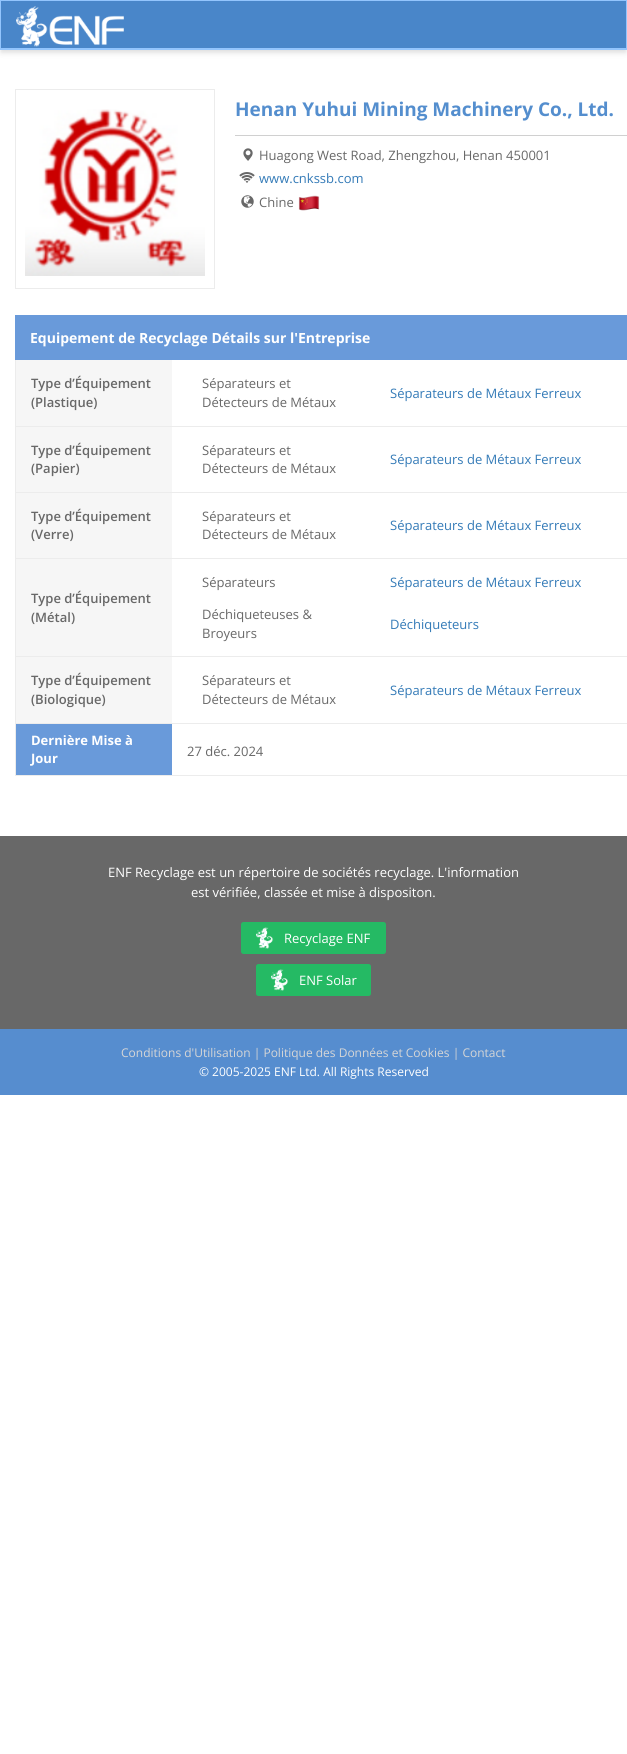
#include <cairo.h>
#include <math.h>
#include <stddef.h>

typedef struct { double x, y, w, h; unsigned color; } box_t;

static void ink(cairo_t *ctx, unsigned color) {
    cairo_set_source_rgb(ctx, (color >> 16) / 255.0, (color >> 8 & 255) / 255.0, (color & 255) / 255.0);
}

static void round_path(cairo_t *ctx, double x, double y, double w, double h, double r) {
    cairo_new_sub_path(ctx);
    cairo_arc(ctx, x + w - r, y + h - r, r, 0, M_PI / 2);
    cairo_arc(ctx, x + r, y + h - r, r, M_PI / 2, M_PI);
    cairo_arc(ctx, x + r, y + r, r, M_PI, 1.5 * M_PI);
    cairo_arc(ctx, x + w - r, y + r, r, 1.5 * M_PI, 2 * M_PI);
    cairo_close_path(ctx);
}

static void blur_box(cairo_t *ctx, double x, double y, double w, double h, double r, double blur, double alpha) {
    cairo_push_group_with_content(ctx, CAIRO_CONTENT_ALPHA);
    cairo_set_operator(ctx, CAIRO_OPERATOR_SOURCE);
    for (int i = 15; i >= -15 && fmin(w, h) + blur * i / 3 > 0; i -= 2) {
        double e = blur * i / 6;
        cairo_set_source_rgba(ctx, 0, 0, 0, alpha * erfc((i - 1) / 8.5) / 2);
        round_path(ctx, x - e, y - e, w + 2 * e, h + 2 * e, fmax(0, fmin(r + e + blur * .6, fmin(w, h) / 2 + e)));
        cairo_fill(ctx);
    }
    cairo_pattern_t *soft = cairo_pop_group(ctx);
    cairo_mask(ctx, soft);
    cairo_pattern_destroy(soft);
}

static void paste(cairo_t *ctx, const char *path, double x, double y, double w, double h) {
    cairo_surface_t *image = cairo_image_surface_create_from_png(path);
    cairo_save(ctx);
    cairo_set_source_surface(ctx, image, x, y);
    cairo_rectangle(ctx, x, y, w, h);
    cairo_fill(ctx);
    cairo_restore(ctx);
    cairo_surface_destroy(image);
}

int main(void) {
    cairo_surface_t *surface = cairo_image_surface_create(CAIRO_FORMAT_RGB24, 627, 1754);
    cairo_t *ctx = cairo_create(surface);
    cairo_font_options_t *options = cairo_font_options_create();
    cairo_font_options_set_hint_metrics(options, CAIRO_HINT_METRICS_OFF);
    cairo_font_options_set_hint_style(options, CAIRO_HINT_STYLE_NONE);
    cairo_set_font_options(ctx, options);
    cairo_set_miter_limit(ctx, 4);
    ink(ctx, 0xFFFFFF);
    cairo_paint(ctx);
    ink(ctx, 0x000000);
    blur_box(ctx, 1, 3, 625, 48, 0, 2, 0.06);
    blur_box(ctx, 1, 5, 625, 48, 0, 3, 0.1);
    {
        static const box_t items[] = {
            {1, 1, 625, 47, 0x4986C9},
            {0, 0, 627, 1, 0x93C5FD},
            {626, 0, 1, 50, 0x93C5FD},
            {0, 48, 627, 2, 0x93C5FD},
            {0, 0, 1, 50, 0x93C5FD},
        };
        for (size_t i = 0; i < sizeof items / sizeof *items; i++) {
            ink(ctx, items[i].color);
            cairo_rectangle(ctx, items[i].x, items[i].y, items[i].w, items[i].h);
            cairo_fill(ctx);
        }
    }
    paste(ctx, "media/1.png", 16, 6, 108, 41);
    cairo_rectangle(ctx, 15.5, 89.5, 199, 199);
    ink(ctx, 0xECECEC);
    cairo_set_line_width(ctx, 1);
    cairo_stroke(ctx);
    paste(ctx, "media/2.png", 25, 109, 180, 167);
    cairo_select_font_face(ctx, "Open Sans", CAIRO_FONT_SLANT_NORMAL, CAIRO_FONT_WEIGHT_BOLD);
    cairo_set_font_size(ctx, 19);
    ink(ctx, 0x548ECE);
    cairo_move_to(ctx, 235, 116);
    cairo_show_text(ctx, "Henan Yuhui Mining Machinery Co., Ltd.");
    ink(ctx, 0xD0D0D0);
    cairo_rectangle(ctx, 235, 135, 392, 1);
    cairo_fill(ctx);
    paste(ctx, "media/3.png", 243, 148, 10, 13);
    cairo_select_font_face(ctx, "Open Sans", CAIRO_FONT_SLANT_NORMAL, CAIRO_FONT_WEIGHT_NORMAL);
    cairo_set_font_size(ctx, 13);
    ink(ctx, 0x686868);
    cairo_move_to(ctx, 259, 160);
    cairo_show_text(ctx, "Huagong West Road, Zhengzhou, Henan 450001");
    paste(ctx, "media/4.png", 239, 172, 16, 11);
    ink(ctx, 0x337AB7);
    cairo_move_to(ctx, 259, 183);
    cairo_show_text(ctx, "www.cnkssb.com");
    paste(ctx, "media/5.png", 241, 195, 13, 13);
    ink(ctx, 0x686868);
    cairo_move_to(ctx, 259, 207);
    cairo_show_text(ctx, "Chine");
    paste(ctx, "media/6.png", 298, 195, 22, 16);
    ink(ctx, 0xECECEC);
    cairo_rectangle(ctx, 15, 723, 612, 1);
    cairo_fill(ctx);
    ink(ctx, 0x699ADA);
    cairo_rectangle(ctx, 15, 315, 612, 45);
    cairo_fill(ctx);
    cairo_select_font_face(ctx, "Open Sans", CAIRO_FONT_SLANT_NORMAL, CAIRO_FONT_WEIGHT_BOLD);
    cairo_set_font_size(ctx, 14);
    ink(ctx, 0xFFFFFF);
    cairo_move_to(ctx, 30, 343);
    cairo_show_text(ctx, "Equipement de Recyclage Détails sur l'Entreprise");
    ink(ctx, 0xECECEC);
    cairo_rectangle(ctx, 15, 360, 1, 363);
    cairo_fill(ctx);
    ink(ctx, 0xF6F6F6);
    cairo_rectangle(ctx, 16, 360, 156, 66);
    cairo_fill(ctx);
    cairo_select_font_face(ctx, "Open Sans SemiBold", CAIRO_FONT_SLANT_NORMAL, CAIRO_FONT_WEIGHT_NORMAL);
    cairo_set_font_size(ctx, 13);
    ink(ctx, 0x686868);
    cairo_move_to(ctx, 31, 388);
    cairo_show_text(ctx, "Type d’Équipement");
    cairo_move_to(ctx, 31, 407);
    cairo_show_text(ctx, "(Plastique)");
    cairo_select_font_face(ctx, "Open Sans", CAIRO_FONT_SLANT_NORMAL, CAIRO_FONT_WEIGHT_NORMAL);
    cairo_move_to(ctx, 202, 388);
    cairo_show_text(ctx, "Séparateurs et");
    cairo_move_to(ctx, 202, 407);
    cairo_show_text(ctx, "Détecteurs de Métaux");
    ink(ctx, 0x337AB7);
    cairo_move_to(ctx, 390, 398);
    cairo_show_text(ctx, "Séparateurs de Métaux Ferreux");
    ink(ctx, 0xECECEC);
    cairo_rectangle(ctx, 16, 426, 611, 1);
    cairo_fill(ctx);
    ink(ctx, 0xF6F6F6);
    cairo_rectangle(ctx, 16, 427, 156, 65);
    cairo_fill(ctx);
    cairo_select_font_face(ctx, "Open Sans SemiBold", CAIRO_FONT_SLANT_NORMAL, CAIRO_FONT_WEIGHT_NORMAL);
    ink(ctx, 0x686868);
    cairo_move_to(ctx, 31, 455);
    cairo_show_text(ctx, "Type d’Équipement");
    cairo_move_to(ctx, 31, 473);
    cairo_show_text(ctx, "(Papier)");
    cairo_select_font_face(ctx, "Open Sans", CAIRO_FONT_SLANT_NORMAL, CAIRO_FONT_WEIGHT_NORMAL);
    cairo_move_to(ctx, 202, 455);
    cairo_show_text(ctx, "Séparateurs et");
    cairo_move_to(ctx, 202, 473);
    cairo_show_text(ctx, "Détecteurs de Métaux");
    ink(ctx, 0x337AB7);
    cairo_move_to(ctx, 390, 464);
    cairo_show_text(ctx, "Séparateurs de Métaux Ferreux");
    ink(ctx, 0xECECEC);
    cairo_rectangle(ctx, 16, 492, 611, 1);
    cairo_fill(ctx);
    ink(ctx, 0xF6F6F6);
    cairo_rectangle(ctx, 16, 493, 156, 65);
    cairo_fill(ctx);
    cairo_select_font_face(ctx, "Open Sans SemiBold", CAIRO_FONT_SLANT_NORMAL, CAIRO_FONT_WEIGHT_NORMAL);
    ink(ctx, 0x686868);
    cairo_move_to(ctx, 31, 521);
    cairo_show_text(ctx, "Type d’Équipement");
    cairo_move_to(ctx, 31, 539);
    cairo_show_text(ctx, "(Verre)");
    cairo_select_font_face(ctx, "Open Sans", CAIRO_FONT_SLANT_NORMAL, CAIRO_FONT_WEIGHT_NORMAL);
    cairo_move_to(ctx, 202, 521);
    cairo_show_text(ctx, "Séparateurs et");
    cairo_move_to(ctx, 202, 539);
    cairo_show_text(ctx, "Détecteurs de Métaux");
    ink(ctx, 0x337AB7);
    cairo_move_to(ctx, 390, 530);
    cairo_show_text(ctx, "Séparateurs de Métaux Ferreux");
    ink(ctx, 0xECECEC);
    cairo_rectangle(ctx, 16, 558, 611, 1);
    cairo_fill(ctx);
    ink(ctx, 0xF6F6F6);
    cairo_rectangle(ctx, 16, 559, 156, 97);
    cairo_fill(ctx);
    cairo_select_font_face(ctx, "Open Sans SemiBold", CAIRO_FONT_SLANT_NORMAL, CAIRO_FONT_WEIGHT_NORMAL);
    ink(ctx, 0x686868);
    cairo_move_to(ctx, 31, 603);
    cairo_show_text(ctx, "Type d’Équipement");
    cairo_move_to(ctx, 31, 622);
    cairo_show_text(ctx, "(Métal)");
    cairo_select_font_face(ctx, "Open Sans", CAIRO_FONT_SLANT_NORMAL, CAIRO_FONT_WEIGHT_NORMAL);
    cairo_move_to(ctx, 202, 587);
    cairo_show_text(ctx, "Séparateurs");
    ink(ctx, 0x337AB7);
    cairo_move_to(ctx, 390, 587);
    cairo_show_text(ctx, "Séparateurs de Métaux Ferreux");
    ink(ctx, 0x686868);
    cairo_move_to(ctx, 202, 619);
    cairo_show_text(ctx, "Déchiqueteuses &");
    cairo_move_to(ctx, 202, 638);
    cairo_show_text(ctx, "Broyeurs");
    ink(ctx, 0x337AB7);
    cairo_move_to(ctx, 390, 629);
    cairo_show_text(ctx, "Déchiqueteurs");
    ink(ctx, 0xECECEC);
    cairo_rectangle(ctx, 16, 656, 611, 1);
    cairo_fill(ctx);
    ink(ctx, 0xF6F6F6);
    cairo_rectangle(ctx, 16, 657, 156, 66);
    cairo_fill(ctx);
    cairo_select_font_face(ctx, "Open Sans SemiBold", CAIRO_FONT_SLANT_NORMAL, CAIRO_FONT_WEIGHT_NORMAL);
    ink(ctx, 0x686868);
    cairo_move_to(ctx, 31, 685);
    cairo_show_text(ctx, "Type d’Équipement");
    cairo_move_to(ctx, 31, 704);
    cairo_show_text(ctx, "(Biologique)");
    cairo_select_font_face(ctx, "Open Sans", CAIRO_FONT_SLANT_NORMAL, CAIRO_FONT_WEIGHT_NORMAL);
    cairo_move_to(ctx, 202, 685);
    cairo_show_text(ctx, "Séparateurs et");
    cairo_move_to(ctx, 202, 704);
    cairo_show_text(ctx, "Détecteurs de Métaux");
    ink(ctx, 0x337AB7);
    cairo_move_to(ctx, 390, 695);
    cairo_show_text(ctx, "Séparateurs de Métaux Ferreux");
    {
        static const box_t items[] = {
            {15, 775, 612, 1, 0xECECEC},
            {15, 724, 1, 51, 0xECECEC},
            {16, 724, 156, 51, 0x699ADA},
        };
        for (size_t i = 0; i < sizeof items / sizeof *items; i++) {
            ink(ctx, items[i].color);
            cairo_rectangle(ctx, items[i].x, items[i].y, items[i].w, items[i].h);
            cairo_fill(ctx);
        }
    }
    cairo_select_font_face(ctx, "Open Sans", CAIRO_FONT_SLANT_NORMAL, CAIRO_FONT_WEIGHT_BOLD);
    ink(ctx, 0xFFFFFF);
    cairo_move_to(ctx, 31, 745);
    cairo_show_text(ctx, "Dernière Mise à");
    cairo_move_to(ctx, 31, 763);
    cairo_show_text(ctx, "Jour");
    cairo_select_font_face(ctx, "Open Sans", CAIRO_FONT_SLANT_NORMAL, CAIRO_FONT_WEIGHT_NORMAL);
    ink(ctx, 0x686868);
    cairo_move_to(ctx, 187, 756);
    cairo_show_text(ctx, "27 déc. 2024");
    cairo_rectangle(ctx, 0, 836, 627, 193);
    cairo_fill(ctx);
    ink(ctx, 0xFFFFFF);
    cairo_move_to(ctx, 108, 877);
    cairo_show_text(ctx, "ENF Recyclage est un répertoire de sociétés recyclage. L'information");
    cairo_move_to(ctx, 191, 897);
    cairo_show_text(ctx, "est vérifiée, classée et mise à dispositon.");
    ink(ctx, 0x25BA64);
    round_path(ctx, 241, 922, 145, 32, 2.5);
    cairo_fill(ctx);
    paste(ctx, "media/7.png", 256, 927, 18, 22);
    ink(ctx, 0xFFFFFF);
    cairo_move_to(ctx, 284, 943);
    cairo_show_text(ctx, "Recyclage ENF");
    ink(ctx, 0x25BA64);
    round_path(ctx, 256, 964, 115, 32, 2.5);
    cairo_fill(ctx);
    paste(ctx, "media/8.png", 271, 969, 18, 22);
    ink(ctx, 0xFFFFFF);
    cairo_move_to(ctx, 299, 985);
    cairo_show_text(ctx, "ENF Solar");
    ink(ctx, 0x568DCF);
    cairo_rectangle(ctx, 0, 1029, 627, 66);
    cairo_fill(ctx);
    cairo_set_font_size(ctx, 12);
    ink(ctx, 0xD6D6D6);
    cairo_move_to(ctx, 121, 1057);
    cairo_show_text(ctx, "Conditions d'Utilisation | Politique des Données et Cookies | Contact");
    ink(ctx, 0xFFFFFF);
    cairo_move_to(ctx, 199, 1076);
    cairo_show_text(ctx, "© 2005-2025 ENF Ltd. All Rights Reserved");
    cairo_surface_write_to_png(surface, "image.png");
    cairo_font_options_destroy(options);
    cairo_destroy(ctx);
    cairo_surface_destroy(surface);
    return 0;
}
